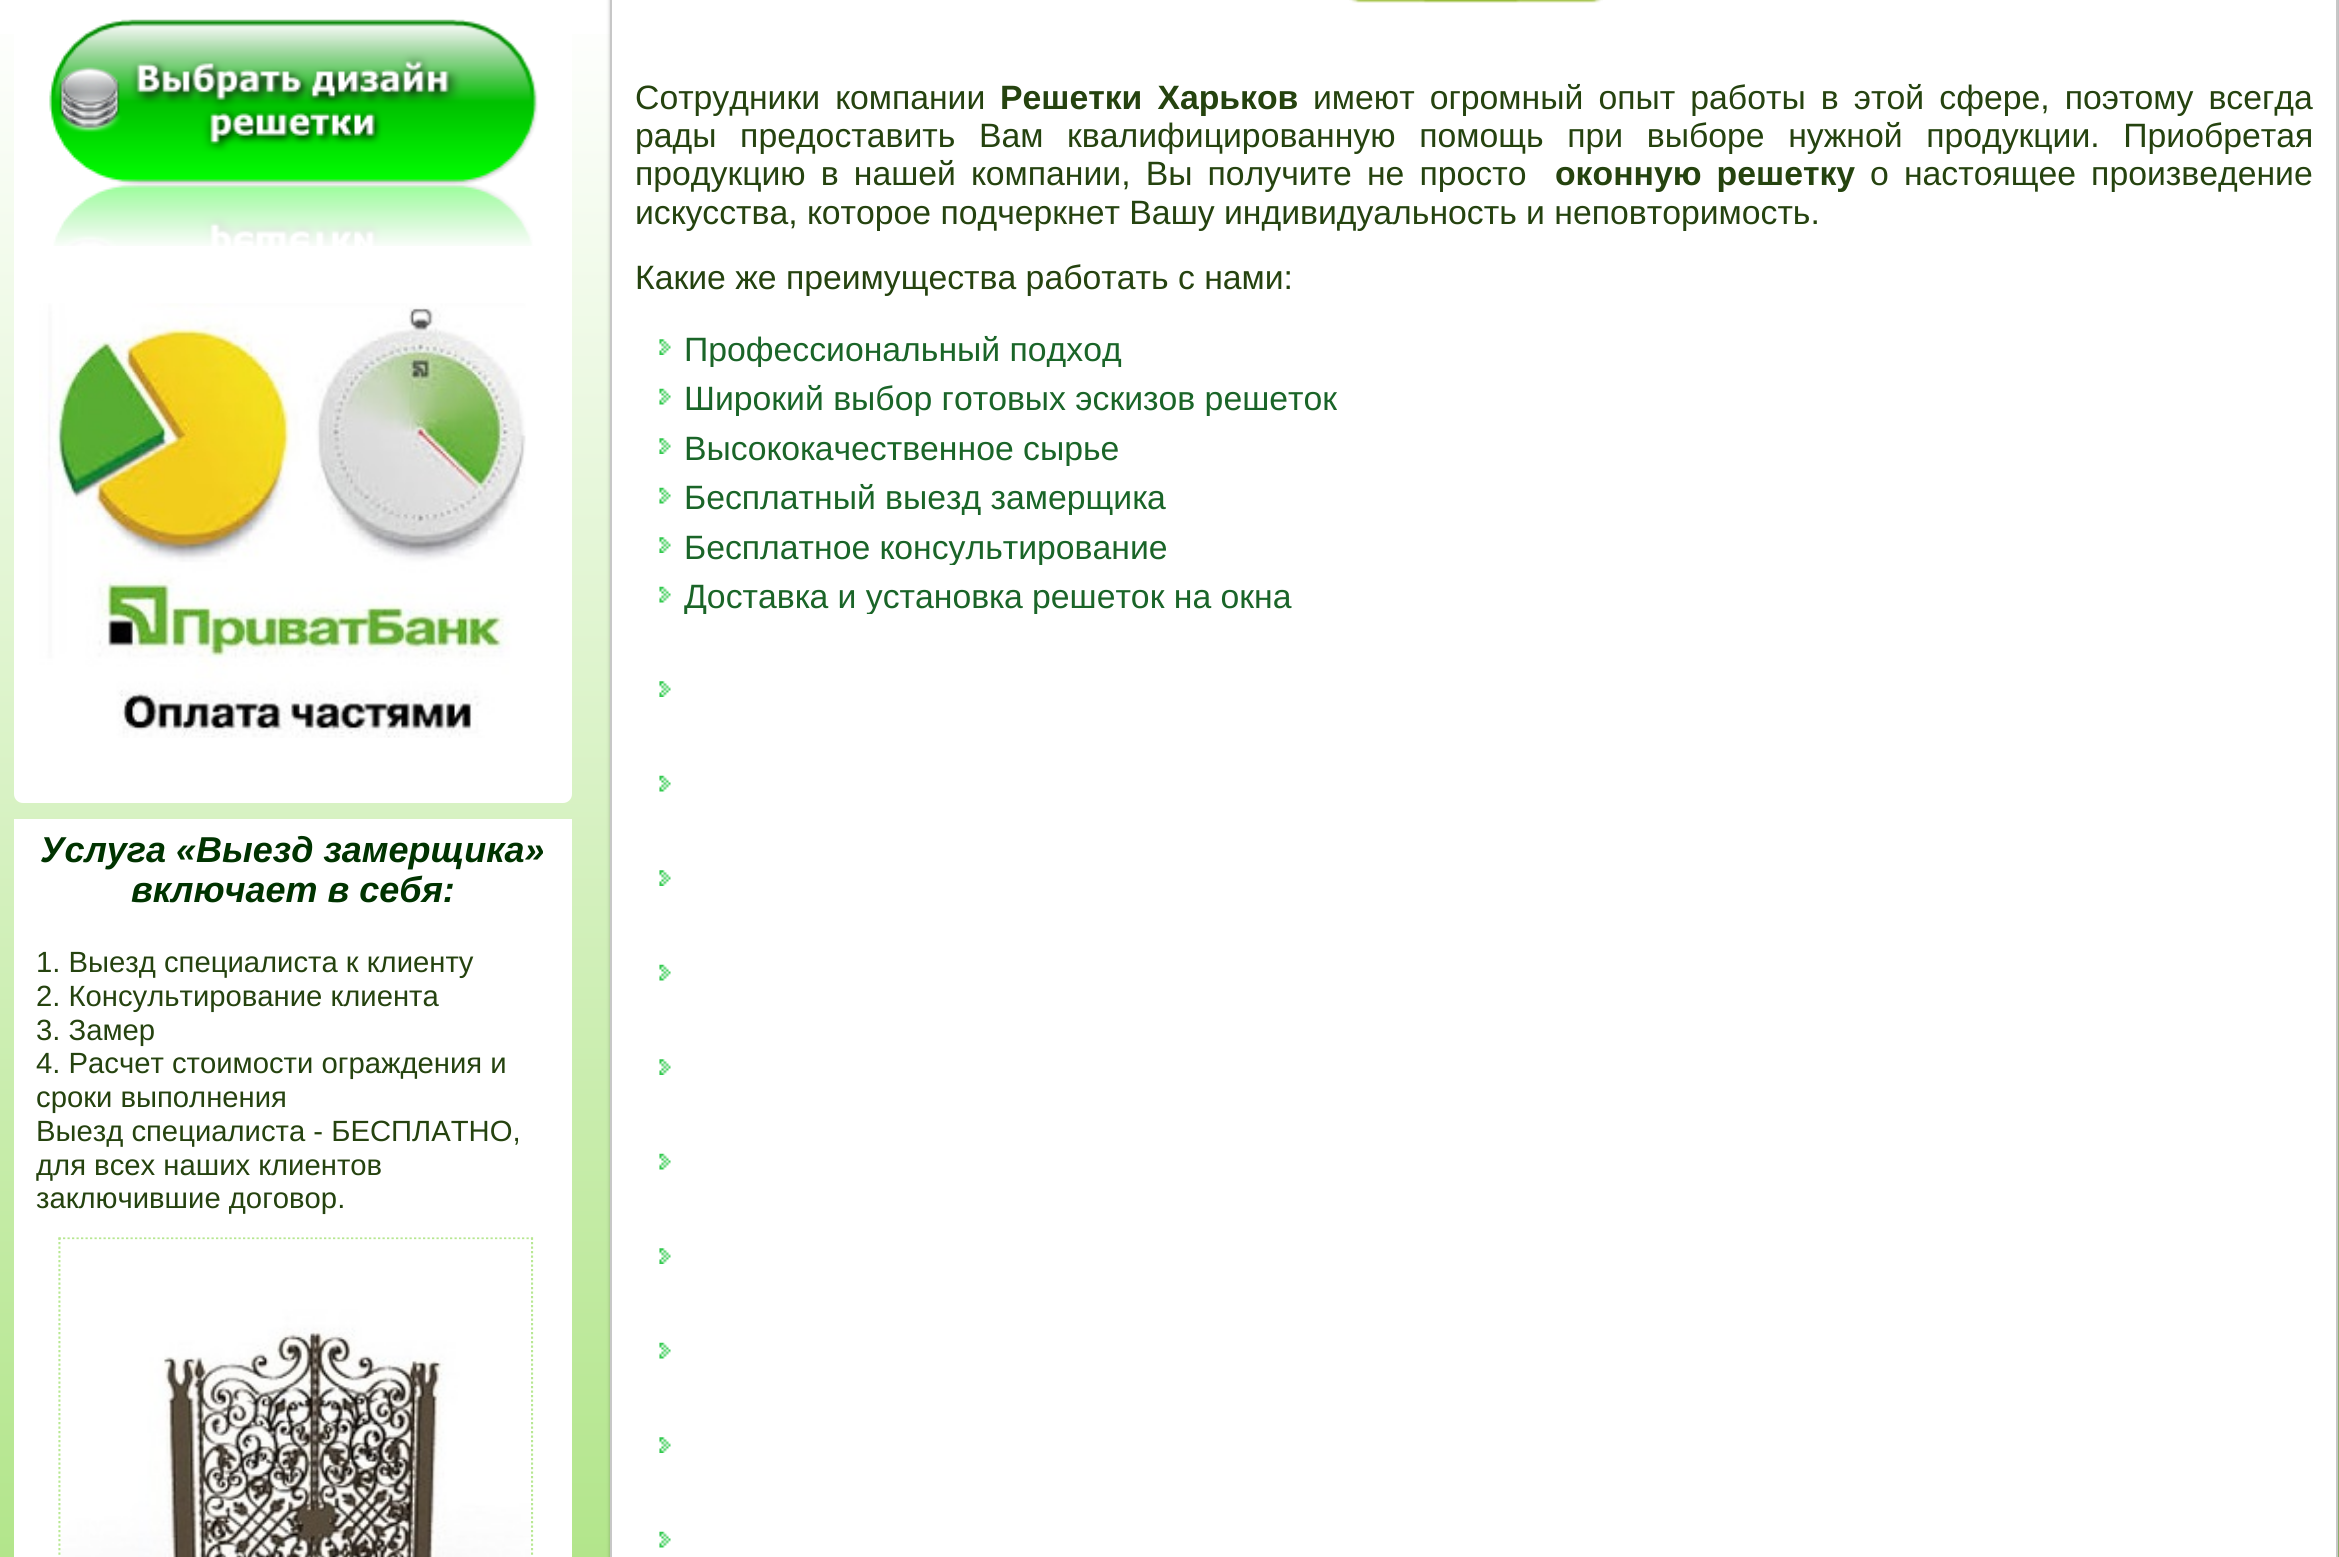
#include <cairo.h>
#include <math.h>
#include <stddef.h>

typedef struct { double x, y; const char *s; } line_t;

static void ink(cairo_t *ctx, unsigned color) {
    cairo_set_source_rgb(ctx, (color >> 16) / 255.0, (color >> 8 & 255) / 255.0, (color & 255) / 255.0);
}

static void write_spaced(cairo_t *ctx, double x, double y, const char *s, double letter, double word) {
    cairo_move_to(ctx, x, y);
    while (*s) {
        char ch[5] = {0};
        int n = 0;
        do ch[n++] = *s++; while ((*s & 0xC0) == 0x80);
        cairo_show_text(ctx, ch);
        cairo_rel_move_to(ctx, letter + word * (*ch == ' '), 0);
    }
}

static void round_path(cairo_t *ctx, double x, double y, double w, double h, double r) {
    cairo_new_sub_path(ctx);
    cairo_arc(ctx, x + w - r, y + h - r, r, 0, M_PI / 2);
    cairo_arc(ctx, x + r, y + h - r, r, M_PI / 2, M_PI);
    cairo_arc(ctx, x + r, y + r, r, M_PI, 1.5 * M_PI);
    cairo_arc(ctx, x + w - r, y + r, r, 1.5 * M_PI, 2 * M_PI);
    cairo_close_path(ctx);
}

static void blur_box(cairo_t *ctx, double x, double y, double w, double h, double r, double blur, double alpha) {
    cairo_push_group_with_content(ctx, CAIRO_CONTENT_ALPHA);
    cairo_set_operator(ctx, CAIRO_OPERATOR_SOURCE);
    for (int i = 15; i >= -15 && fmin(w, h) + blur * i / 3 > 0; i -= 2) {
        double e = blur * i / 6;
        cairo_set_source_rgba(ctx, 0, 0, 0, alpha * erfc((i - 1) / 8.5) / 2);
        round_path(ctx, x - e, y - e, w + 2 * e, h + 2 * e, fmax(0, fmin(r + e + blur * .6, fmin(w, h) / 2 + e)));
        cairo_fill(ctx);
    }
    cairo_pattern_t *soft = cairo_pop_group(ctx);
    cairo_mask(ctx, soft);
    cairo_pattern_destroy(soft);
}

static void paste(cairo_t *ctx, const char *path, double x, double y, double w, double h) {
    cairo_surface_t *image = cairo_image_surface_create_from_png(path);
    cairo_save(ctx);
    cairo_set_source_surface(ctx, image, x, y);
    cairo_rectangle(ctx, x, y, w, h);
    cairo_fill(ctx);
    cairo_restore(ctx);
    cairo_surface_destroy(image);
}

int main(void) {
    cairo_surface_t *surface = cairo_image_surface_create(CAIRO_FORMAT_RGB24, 2339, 1557);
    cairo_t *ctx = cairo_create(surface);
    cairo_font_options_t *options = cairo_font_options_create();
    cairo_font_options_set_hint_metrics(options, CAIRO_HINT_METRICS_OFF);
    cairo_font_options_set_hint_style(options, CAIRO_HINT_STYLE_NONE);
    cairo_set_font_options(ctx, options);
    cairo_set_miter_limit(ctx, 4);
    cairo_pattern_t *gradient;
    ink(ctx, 0xFFFFFF);
    cairo_paint(ctx);
    gradient = cairo_pattern_create_linear(1170, 0, 1170, 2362);
    cairo_pattern_add_color_stop_rgba(gradient, 0, 1, 1, 1, 1);
    cairo_pattern_add_color_stop_rgba(gradient, 1, 0.545, 0.847, 0.31, 1);
    cairo_set_source(ctx, gradient);
    cairo_pattern_destroy(gradient);
    cairo_rectangle(ctx, 0, 34, 2339, 1523);
    cairo_fill(ctx);
    ink(ctx, 0x000000);
    blur_box(ctx, 610, -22, 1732, 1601, 16, 2, 0.25);
    ink(ctx, 0xFFFFFF);
    cairo_rectangle(ctx, 611, -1, 1726, 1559);
    cairo_fill_preserve(ctx);
    ink(ctx, 0xC7C7C7);
    cairo_stroke(ctx);
    paste(ctx, "media/1.png", 1349, 0, 254, 3);
    cairo_select_font_face(ctx, "Liberation Sans", CAIRO_FONT_SLANT_NORMAL, CAIRO_FONT_WEIGHT_NORMAL);
    cairo_set_font_size(ctx, 33.75);
    ink(ctx, 0x25430F);
    write_spaced(ctx, 635, 109, "Сотрудники компании", 0, 5.75);
    cairo_select_font_face(ctx, "Liberation Sans", CAIRO_FONT_SLANT_NORMAL, CAIRO_FONT_WEIGHT_BOLD);
    write_spaced(ctx, 1000, 109, "Решетки Харьков", 0, 5.75);
    cairo_select_font_face(ctx, "Liberation Sans", CAIRO_FONT_SLANT_NORMAL, CAIRO_FONT_WEIGHT_NORMAL);
    write_spaced(ctx, 1313, 109, "имеют огромный опыт работы в этой сфере, поэтому всегда", 0, 5.75);
    write_spaced(ctx, 635, 147, "рады предоставить Вам квалифицированную помощь при выборе нужной продукции. Приобретая", 0, 14.25);
    write_spaced(ctx, 635, 185, "продукцию в нашей компании, Вы получите не просто", 0, 5.75);
    cairo_select_font_face(ctx, "Liberation Sans", CAIRO_FONT_SLANT_NORMAL, CAIRO_FONT_WEIGHT_BOLD);
    write_spaced(ctx, 1555, 185, "оконную решетку", 0, 5.75);
    cairo_select_font_face(ctx, "Liberation Sans", CAIRO_FONT_SLANT_NORMAL, CAIRO_FONT_WEIGHT_NORMAL);
    write_spaced(ctx, 1870, 185, "о настоящее произведение", 0, 5.75);
    cairo_move_to(ctx, 635, 224);
    cairo_show_text(ctx, "искусства, которое подчеркнет Вашу индивидуальность и неповторимость.");
    cairo_move_to(ctx, 635, 289);
    cairo_show_text(ctx, "Какие же преимущества работать с нами:");
    paste(ctx, "media/2.png", 659, 339, 12, 16);
    cairo_save(ctx);
    cairo_rectangle(ctx, 659, 329, 1654, 38);
    cairo_clip(ctx);
    ink(ctx, 0x1A6528);
    cairo_move_to(ctx, 684, 361);
    cairo_show_text(ctx, "Профессиональный подход");
    cairo_restore(ctx);
    paste(ctx, "media/3.png", 659, 388, 12, 17);
    cairo_save(ctx);
    cairo_rectangle(ctx, 659, 378, 1654, 38);
    cairo_clip(ctx);
    ink(ctx, 0x1A6528);
    cairo_move_to(ctx, 684, 410);
    cairo_show_text(ctx, "Широкий выбор готовых эскизов решеток");
    cairo_restore(ctx);
    paste(ctx, "media/2.png", 659, 438, 12, 16);
    cairo_save(ctx);
    cairo_rectangle(ctx, 659, 428, 1654, 38);
    cairo_clip(ctx);
    ink(ctx, 0x1A6528);
    cairo_move_to(ctx, 684, 460);
    cairo_show_text(ctx, "Высококачественное сырье");
    cairo_restore(ctx);
    paste(ctx, "media/3.png", 659, 487, 12, 17);
    cairo_save(ctx);
    cairo_rectangle(ctx, 659, 477, 1654, 38);
    cairo_clip(ctx);
    ink(ctx, 0x1A6528);
    cairo_move_to(ctx, 684, 509);
    cairo_show_text(ctx, "Бесплатный выезд замерщика");
    cairo_restore(ctx);
    paste(ctx, "media/2.png", 659, 537, 12, 16);
    cairo_save(ctx);
    cairo_rectangle(ctx, 659, 527, 1654, 38);
    cairo_clip(ctx);
    ink(ctx, 0x1A6528);
    cairo_move_to(ctx, 684, 559);
    cairo_show_text(ctx, "Бесплатное консультирование");
    cairo_restore(ctx);
    paste(ctx, "media/3.png", 659, 586, 12, 17);
    cairo_save(ctx);
    cairo_rectangle(ctx, 659, 576, 1654, 38);
    cairo_clip(ctx);
    ink(ctx, 0x1A6528);
    cairo_move_to(ctx, 684, 608);
    cairo_show_text(ctx, "Доставка и установка решеток на окна");
    cairo_restore(ctx);
    paste(ctx, "media/2.png", 659, 681, 12, 16);
    paste(ctx, "media/3.png", 659, 775, 12, 17);
    paste(ctx, "media/2.png", 659, 870, 12, 16);
    paste(ctx, "media/3.png", 659, 964, 12, 17);
    paste(ctx, "media/2.png", 659, 1059, 12, 16);
    paste(ctx, "media/3.png", 659, 1153, 12, 17);
    paste(ctx, "media/2.png", 659, 1248, 12, 16);
    paste(ctx, "media/3.png", 659, 1342, 12, 17);
    paste(ctx, "media/2.png", 659, 1437, 12, 16);
    paste(ctx, "media/3.png", 659, 1531, 12, 17);
    ink(ctx, 0xFFFFFF);
    cairo_new_path(ctx);
    cairo_move_to(ctx, 14, -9);
    cairo_line_to(ctx, 572, -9);
    cairo_line_to(ctx, 572, 794);
    cairo_curve_to(ctx, 572, 799, 568, 803, 563, 803);
    cairo_line_to(ctx, 23, 803);
    cairo_curve_to(ctx, 18, 803, 14, 799, 14, 794);
    cairo_close_path(ctx);
    cairo_fill(ctx);
    paste(ctx, "media/4.png", 49, 19, 489, 227);
    paste(ctx, "media/5.png", 39, 303, 487, 435);
    cairo_rectangle(ctx, 14, 819, 558, 738);
    cairo_fill(ctx);
    cairo_select_font_face(ctx, "Liberation Sans", CAIRO_FONT_SLANT_ITALIC, CAIRO_FONT_WEIGHT_BOLD);
    cairo_set_font_size(ctx, 36);
    ink(ctx, 0x003300);
    cairo_move_to(ctx, 40, 862);
    cairo_show_text(ctx, "Услуга «Выезд замерщика»");
    cairo_move_to(ctx, 131, 902);
    cairo_show_text(ctx, "включает в себя:");
    cairo_select_font_face(ctx, "Liberation Sans", CAIRO_FONT_SLANT_NORMAL, CAIRO_FONT_WEIGHT_NORMAL);
    cairo_set_font_size(ctx, 29.25);
    ink(ctx, 0x25430F);
    {
        static const line_t items[] = {
            {36, 972, "1. Выезд специалиста к клиенту"},
            {36, 1006, "2. Консультирование клиента"},
            {36, 1040, "3. Замер"},
            {36, 1073, "4. Расчет стоимости ограждения и"},
            {36, 1107, "сроки выполнения"},
            {36, 1141, "Выезд специалиста - БЕСПЛАТНО,"},
            {36, 1175, "для всех наших клиентов"},
            {36, 1208, "заключившие договор."},
        };
        for (size_t i = 0; i < sizeof items / sizeof *items; i++) {
            cairo_move_to(ctx, items[i].x, items[i].y);
            cairo_show_text(ctx, items[i].s);
        }
    }
    cairo_new_path(ctx);
    cairo_move_to(ctx, 58.5, 1238.5);
    cairo_line_to(ctx, 533, 1238.5);
    ink(ctx, 0xB7E792);
    cairo_set_line_width(ctx, 2.2);
    cairo_set_dash(ctx, (double[]){2.25, 2.25}, 2, 0);
    cairo_stroke(ctx);
    cairo_new_path(ctx);
    cairo_move_to(ctx, 59.5, 1237.5);
    cairo_line_to(ctx, 59.5, 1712);
    cairo_stroke(ctx);
    cairo_new_path(ctx);
    cairo_move_to(ctx, 532, 1237.5);
    cairo_line_to(ctx, 532, 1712);
    cairo_stroke(ctx);
    paste(ctx, "media/6.png", 60, 1239, 471, 318);
    cairo_surface_write_to_png(surface, "image.png");
    cairo_font_options_destroy(options);
    cairo_destroy(ctx);
    cairo_surface_destroy(surface);
    return 0;
}
